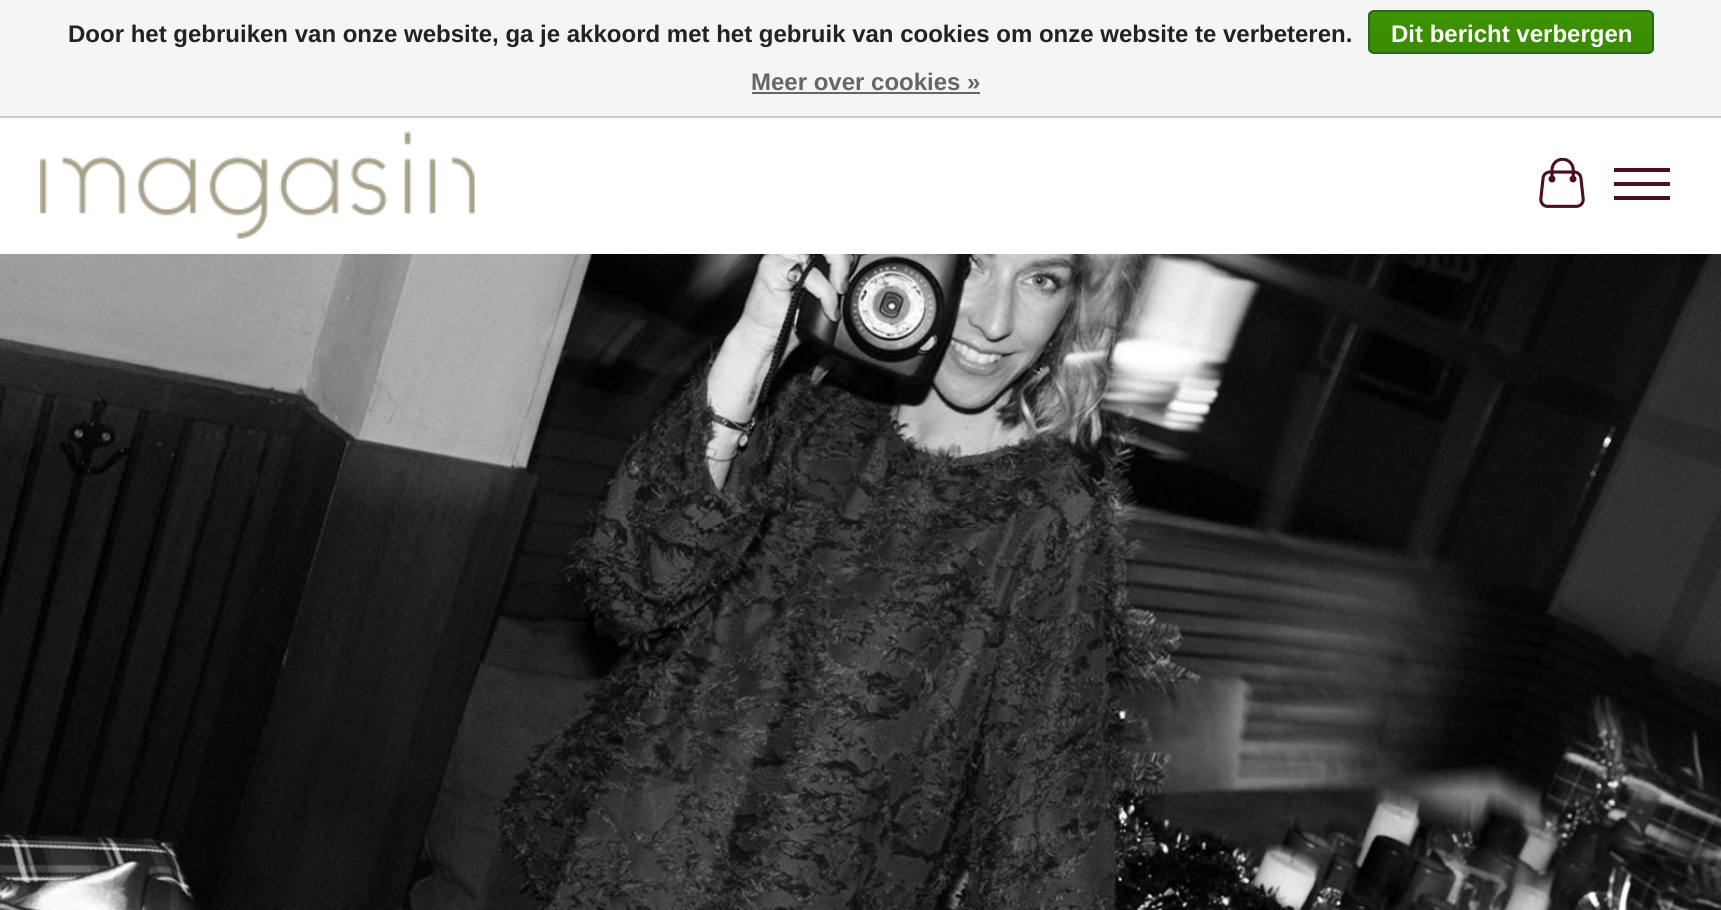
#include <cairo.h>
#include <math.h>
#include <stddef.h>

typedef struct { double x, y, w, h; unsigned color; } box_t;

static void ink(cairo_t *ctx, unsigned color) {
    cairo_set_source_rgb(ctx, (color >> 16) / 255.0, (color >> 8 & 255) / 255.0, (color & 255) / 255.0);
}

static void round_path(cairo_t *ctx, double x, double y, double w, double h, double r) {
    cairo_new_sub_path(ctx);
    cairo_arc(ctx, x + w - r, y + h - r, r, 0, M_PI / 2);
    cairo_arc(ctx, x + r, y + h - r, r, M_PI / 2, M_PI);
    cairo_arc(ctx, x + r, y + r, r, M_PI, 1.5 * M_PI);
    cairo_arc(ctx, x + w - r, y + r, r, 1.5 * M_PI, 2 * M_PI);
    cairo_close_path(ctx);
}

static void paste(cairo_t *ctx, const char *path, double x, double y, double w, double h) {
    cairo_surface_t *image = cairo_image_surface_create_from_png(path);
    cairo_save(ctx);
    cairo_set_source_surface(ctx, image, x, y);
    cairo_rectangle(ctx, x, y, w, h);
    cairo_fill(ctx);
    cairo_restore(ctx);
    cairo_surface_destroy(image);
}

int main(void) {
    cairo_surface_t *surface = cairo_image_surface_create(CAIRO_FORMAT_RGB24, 1721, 910);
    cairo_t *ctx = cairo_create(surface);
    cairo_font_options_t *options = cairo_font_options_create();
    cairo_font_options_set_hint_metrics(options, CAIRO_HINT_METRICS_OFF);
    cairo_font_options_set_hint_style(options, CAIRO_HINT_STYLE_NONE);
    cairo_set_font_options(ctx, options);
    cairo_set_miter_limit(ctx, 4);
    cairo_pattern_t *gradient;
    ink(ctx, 0xFFFFFF);
    cairo_paint(ctx);
    ink(ctx, 0xF5F5F5);
    cairo_rectangle(ctx, 0, 0, 1721, 116);
    cairo_fill(ctx);
    ink(ctx, 0xCCCCCC);
    cairo_rectangle(ctx, 0, 116, 1721, 2);
    cairo_fill(ctx);
    cairo_select_font_face(ctx, "Liberation Sans", CAIRO_FONT_SLANT_NORMAL, CAIRO_FONT_WEIGHT_BOLD);
    cairo_set_font_size(ctx, 24);
    ink(ctx, 0x222222);
    cairo_move_to(ctx, 68, 42);
    cairo_show_text(ctx, "Door het gebruiken van onze website, ga je akkoord met het gebruik van cookies om onze website te verbeteren.");
    cairo_save(ctx);
    round_path(ctx, 1368, 10, 286, 44, 6);
    cairo_clip(ctx);
    gradient = cairo_pattern_create_linear(1511, 12, 1511, 52);
    cairo_pattern_add_color_stop_rgba(gradient, 0, 0.235, 0.576, 0, 1);
    cairo_pattern_add_color_stop_rgba(gradient, 1, 0.224, 0.541, 0, 1);
    cairo_set_source(ctx, gradient);
    cairo_pattern_destroy(gradient);
    cairo_rectangle(ctx, 1368, 12, 286, 40);
    cairo_fill(ctx);
    cairo_restore(ctx);
    round_path(ctx, 1369, 11, 284, 42, 5);
    ink(ctx, 0x29691D);
    cairo_stroke(ctx);
    ink(ctx, 0xFFFFFF);
    cairo_move_to(ctx, 1391, 42);
    cairo_show_text(ctx, "Dit bericht verbergen");
    ink(ctx, 0x666666);
    cairo_move_to(ctx, 751, 90);
    cairo_show_text(ctx, "Meer over cookies »");
    cairo_rectangle(ctx, 752, 92, 228, 2);
    cairo_fill(ctx);
    paste(ctx, "media/1.png", 40, 131, 436, 108);
    paste(ctx, "media/2.png", 1539, 158, 46, 50);
    {
        static const box_t items[] = {
            {1614, 182, 56, 4, 0x49111D},
            {1614, 168, 56, 4, 0x49111D},
            {1614, 196, 56, 4, 0x49111D},
        };
        for (size_t i = 0; i < sizeof items / sizeof *items; i++) {
            ink(ctx, items[i].color);
            cairo_rectangle(ctx, items[i].x, items[i].y, items[i].w, items[i].h);
            cairo_fill(ctx);
        }
    }
    paste(ctx, "media/3.png", 0, 254, 1721, 656);
    cairo_surface_write_to_png(surface, "image.png");
    cairo_font_options_destroy(options);
    cairo_destroy(ctx);
    cairo_surface_destroy(surface);
    return 0;
}
